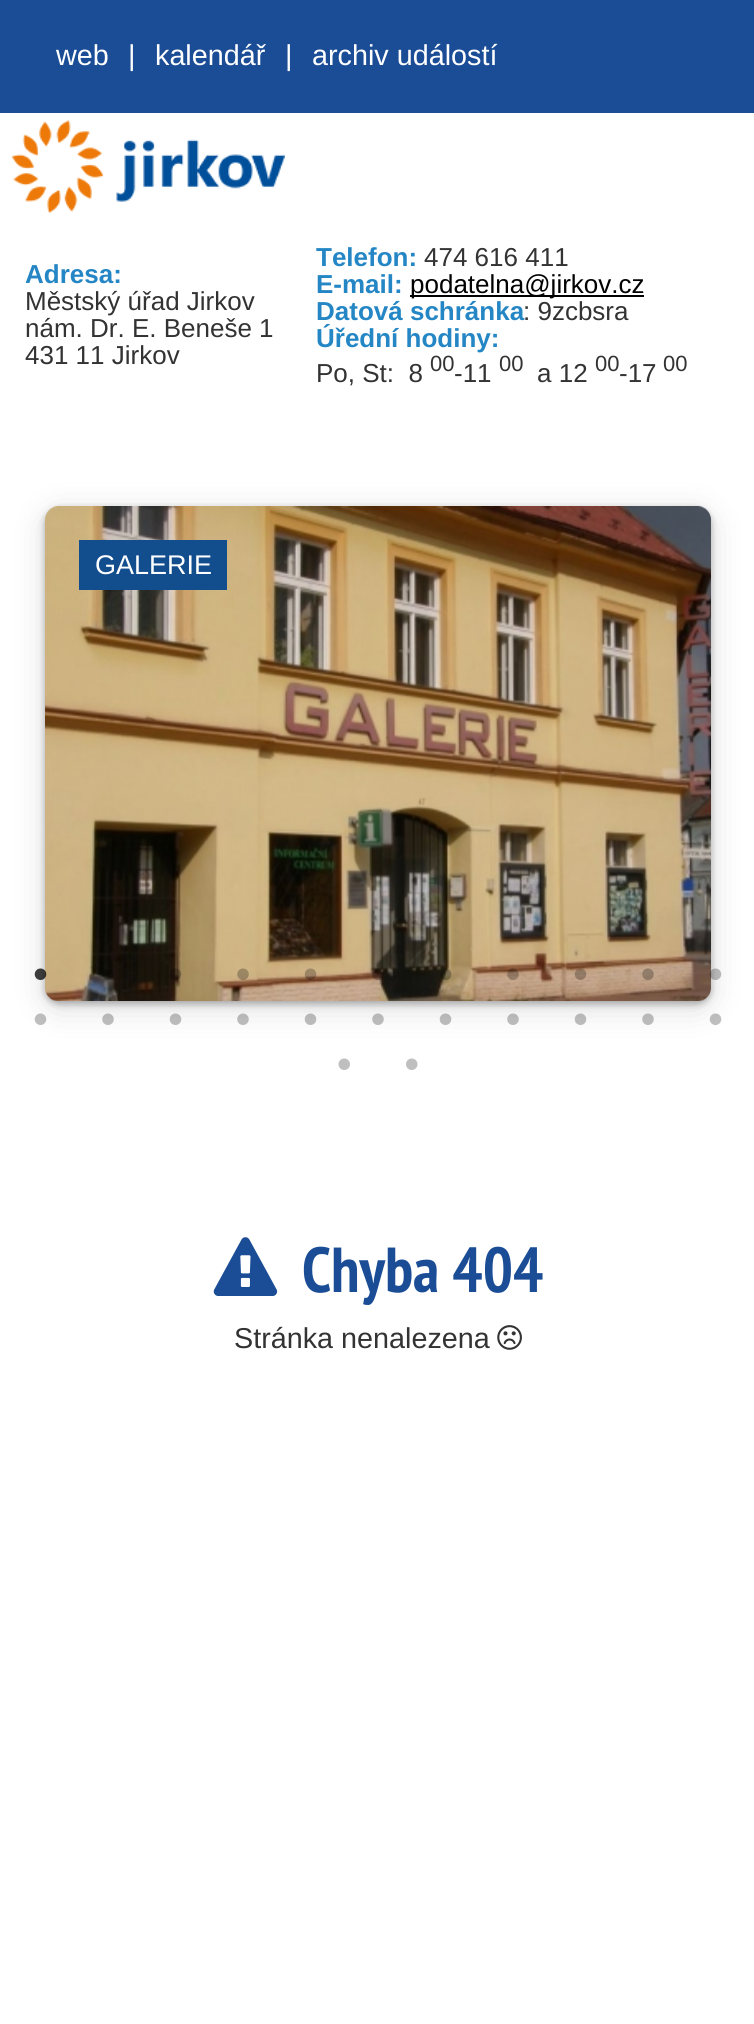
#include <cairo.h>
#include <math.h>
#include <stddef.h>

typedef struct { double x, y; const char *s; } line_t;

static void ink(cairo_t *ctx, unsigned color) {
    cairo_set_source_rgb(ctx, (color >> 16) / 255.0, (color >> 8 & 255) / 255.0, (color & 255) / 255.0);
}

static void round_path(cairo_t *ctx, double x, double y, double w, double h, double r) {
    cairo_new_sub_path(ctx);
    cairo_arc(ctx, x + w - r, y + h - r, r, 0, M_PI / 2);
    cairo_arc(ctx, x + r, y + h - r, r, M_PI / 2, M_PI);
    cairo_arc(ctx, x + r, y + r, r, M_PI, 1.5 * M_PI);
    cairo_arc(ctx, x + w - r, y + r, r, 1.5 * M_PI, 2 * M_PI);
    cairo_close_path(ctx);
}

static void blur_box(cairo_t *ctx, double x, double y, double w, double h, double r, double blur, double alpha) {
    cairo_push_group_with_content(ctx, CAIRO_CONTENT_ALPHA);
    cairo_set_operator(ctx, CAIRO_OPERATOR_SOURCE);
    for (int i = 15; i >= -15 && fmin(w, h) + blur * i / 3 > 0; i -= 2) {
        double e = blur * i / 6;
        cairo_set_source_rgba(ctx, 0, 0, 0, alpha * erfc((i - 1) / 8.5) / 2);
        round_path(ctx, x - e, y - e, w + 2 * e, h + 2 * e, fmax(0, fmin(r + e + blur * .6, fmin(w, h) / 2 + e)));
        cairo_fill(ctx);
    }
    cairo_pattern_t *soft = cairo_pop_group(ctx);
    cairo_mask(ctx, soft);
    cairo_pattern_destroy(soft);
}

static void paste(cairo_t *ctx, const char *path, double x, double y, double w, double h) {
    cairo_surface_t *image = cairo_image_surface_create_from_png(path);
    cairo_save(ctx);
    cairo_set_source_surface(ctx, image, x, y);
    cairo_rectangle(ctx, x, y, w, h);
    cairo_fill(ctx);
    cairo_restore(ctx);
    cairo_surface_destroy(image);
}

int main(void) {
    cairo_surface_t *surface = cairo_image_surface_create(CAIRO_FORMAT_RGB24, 754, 2024);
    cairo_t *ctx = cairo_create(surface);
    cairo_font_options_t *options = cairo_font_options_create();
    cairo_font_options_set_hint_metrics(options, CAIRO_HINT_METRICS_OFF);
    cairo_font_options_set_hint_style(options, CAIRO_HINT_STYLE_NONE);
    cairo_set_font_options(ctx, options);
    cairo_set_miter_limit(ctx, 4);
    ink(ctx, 0xFFFFFF);
    cairo_paint(ctx);
    ink(ctx, 0x1B4D96);
    cairo_rectangle(ctx, 0, 0, 754, 113);
    cairo_fill(ctx);
    cairo_select_font_face(ctx, "Liberation Sans", CAIRO_FONT_SLANT_NORMAL, CAIRO_FONT_WEIGHT_NORMAL);
    cairo_set_font_size(ctx, 28.75);
    ink(ctx, 0xFFFFFF);
    {
        static const line_t items[] = {
            {56, 65, "web"},
            {128, 65, "|"},
            {155, 65, "kalendář"},
            {285, 65, "|"},
            {312, 65, "archiv událostí"},
        };
        for (size_t i = 0; i < sizeof items / sizeof *items; i++) {
            cairo_move_to(ctx, items[i].x, items[i].y);
            cairo_show_text(ctx, items[i].s);
        }
    }
    paste(ctx, "media/1.png", 12, 120, 273, 93);
    cairo_select_font_face(ctx, "Liberation Sans", CAIRO_FONT_SLANT_NORMAL, CAIRO_FONT_WEIGHT_BOLD);
    cairo_set_font_size(ctx, 26);
    ink(ctx, 0x2486C4);
    cairo_move_to(ctx, 25, 283);
    cairo_show_text(ctx, "Adresa:");
    cairo_select_font_face(ctx, "Liberation Sans", CAIRO_FONT_SLANT_NORMAL, CAIRO_FONT_WEIGHT_NORMAL);
    ink(ctx, 0x333333);
    {
        static const line_t items[] = {
            {25, 310, "Městský úřad Jirkov"},
            {25, 337, "nám. Dr. E. Beneše 1"},
            {25, 364, "431 11 Jirkov"},
        };
        for (size_t i = 0; i < sizeof items / sizeof *items; i++) {
            cairo_move_to(ctx, items[i].x, items[i].y);
            cairo_show_text(ctx, items[i].s);
        }
    }
    cairo_select_font_face(ctx, "Liberation Sans", CAIRO_FONT_SLANT_NORMAL, CAIRO_FONT_WEIGHT_BOLD);
    ink(ctx, 0x2486C4);
    cairo_move_to(ctx, 316, 266);
    cairo_show_text(ctx, "Telefon:");
    cairo_select_font_face(ctx, "Liberation Sans", CAIRO_FONT_SLANT_NORMAL, CAIRO_FONT_WEIGHT_NORMAL);
    ink(ctx, 0x333333);
    cairo_move_to(ctx, 424, 266);
    cairo_show_text(ctx, "474 616 411");
    cairo_select_font_face(ctx, "Liberation Sans", CAIRO_FONT_SLANT_NORMAL, CAIRO_FONT_WEIGHT_BOLD);
    ink(ctx, 0x2486C4);
    cairo_move_to(ctx, 316, 293);
    cairo_show_text(ctx, "E-mail:");
    ink(ctx, 0x000000);
    cairo_rectangle(ctx, 410, 295, 234, 2);
    cairo_fill(ctx);
    cairo_select_font_face(ctx, "Liberation Sans", CAIRO_FONT_SLANT_NORMAL, CAIRO_FONT_WEIGHT_NORMAL);
    cairo_move_to(ctx, 410, 293);
    cairo_show_text(ctx, "podatelna@jirkov.cz");
    cairo_select_font_face(ctx, "Liberation Sans", CAIRO_FONT_SLANT_NORMAL, CAIRO_FONT_WEIGHT_BOLD);
    ink(ctx, 0x2486C4);
    cairo_move_to(ctx, 316, 320);
    cairo_show_text(ctx, "Datová schránka");
    cairo_select_font_face(ctx, "Liberation Sans", CAIRO_FONT_SLANT_NORMAL, CAIRO_FONT_WEIGHT_NORMAL);
    ink(ctx, 0x333333);
    cairo_move_to(ctx, 523, 320);
    cairo_show_text(ctx, ": 9zcbsra");
    cairo_select_font_face(ctx, "Liberation Sans", CAIRO_FONT_SLANT_NORMAL, CAIRO_FONT_WEIGHT_BOLD);
    ink(ctx, 0x2486C4);
    cairo_move_to(ctx, 316, 347);
    cairo_show_text(ctx, "Úřední hodiny:");
    cairo_select_font_face(ctx, "Liberation Sans", CAIRO_FONT_SLANT_NORMAL, CAIRO_FONT_WEIGHT_NORMAL);
    ink(ctx, 0x333333);
    cairo_move_to(ctx, 316, 382);
    cairo_show_text(ctx, "Po, St:  8");
    cairo_set_font_size(ctx, 22);
    cairo_move_to(ctx, 430, 371);
    cairo_show_text(ctx, "00");
    cairo_set_font_size(ctx, 26);
    cairo_move_to(ctx, 454, 382);
    cairo_show_text(ctx, "-11");
    cairo_set_font_size(ctx, 22);
    cairo_move_to(ctx, 499, 371);
    cairo_show_text(ctx, "00");
    cairo_set_font_size(ctx, 26);
    cairo_move_to(ctx, 537, 382);
    cairo_show_text(ctx, "a 12");
    cairo_set_font_size(ctx, 22);
    cairo_move_to(ctx, 595, 371);
    cairo_show_text(ctx, "00");
    cairo_set_font_size(ctx, 26);
    cairo_move_to(ctx, 619, 382);
    cairo_show_text(ctx, "-17");
    cairo_set_font_size(ctx, 22);
    cairo_move_to(ctx, 663, 371);
    cairo_show_text(ctx, "00");
    ink(ctx, 0x000000);
    blur_box(ctx, 43, 511, 670, 499, 16, 16, 0.12);
    blur_box(ctx, 45, 509, 666, 495, 14, 3.5, 0.3);
    paste(ctx, "media/2.png", 45, 506, 666, 495);
    ink(ctx, 0x124D8E);
    cairo_rectangle(ctx, 79, 540, 148, 50);
    cairo_fill(ctx);
    cairo_set_font_size(ctx, 27);
    ink(ctx, 0xFFFFFF);
    cairo_move_to(ctx, 95, 574);
    cairo_show_text(ctx, "GALERIE");
    paste(ctx, "media/3.png", 34, 968, 13, 12);
    paste(ctx, "media/4.png", 102, 969, 12, 11);
    paste(ctx, "media/5.png", 170, 968, 12, 12);
    paste(ctx, "media/6.png", 237, 968, 12, 12);
    paste(ctx, "media/7.png", 304, 968, 13, 12);
    paste(ctx, "media/8.png", 372, 968, 12, 12);
    paste(ctx, "media/9.png", 440, 968, 12, 12);
    paste(ctx, "media/10.png", 507, 968, 12, 12);
    paste(ctx, "media/11.png", 574, 968, 13, 12);
    paste(ctx, "media/12.png", 642, 968, 12, 12);
    paste(ctx, "media/13.png", 709, 968, 13, 12);
    paste(ctx, "media/14.png", 34, 1013, 13, 12);
    paste(ctx, "media/15.png", 102, 1013, 12, 12);
    paste(ctx, "media/16.png", 169, 1013, 13, 12);
    paste(ctx, "media/15.png", 237, 1013, 12, 12);
    paste(ctx, "media/16.png", 304, 1013, 13, 12);
    paste(ctx, "media/15.png", 372, 1013, 12, 12);
    paste(ctx, "media/16.png", 439, 1013, 13, 12);
    paste(ctx, "media/15.png", 507, 1013, 12, 12);
    paste(ctx, "media/16.png", 574, 1013, 13, 12);
    paste(ctx, "media/15.png", 642, 1013, 12, 12);
    paste(ctx, "media/17.png", 709, 1013, 13, 12);
    paste(ctx, "media/18.png", 338, 1058, 12, 12);
    paste(ctx, "media/19.png", 406, 1058, 12, 12);
    paste(ctx, "media/20.png", 213, 1237, 65, 59);
    cairo_select_font_face(ctx, "PT Sans Narrow", CAIRO_FONT_SLANT_NORMAL, CAIRO_FONT_WEIGHT_BOLD);
    cairo_set_font_size(ctx, 63.5);
    ink(ctx, 0x1B4D96);
    cairo_move_to(ctx, 302, 1292);
    cairo_show_text(ctx, "Chyba 404");
    cairo_select_font_face(ctx, "Liberation Sans", CAIRO_FONT_SLANT_NORMAL, CAIRO_FONT_WEIGHT_NORMAL);
    cairo_set_font_size(ctx, 28.75);
    ink(ctx, 0x333333);
    cairo_move_to(ctx, 234, 1348);
    cairo_show_text(ctx, "Stránka nenalezena");
    paste(ctx, "media/21.png", 497, 1325, 25, 25);
    cairo_surface_write_to_png(surface, "image.png");
    cairo_font_options_destroy(options);
    cairo_destroy(ctx);
    cairo_surface_destroy(surface);
    return 0;
}
